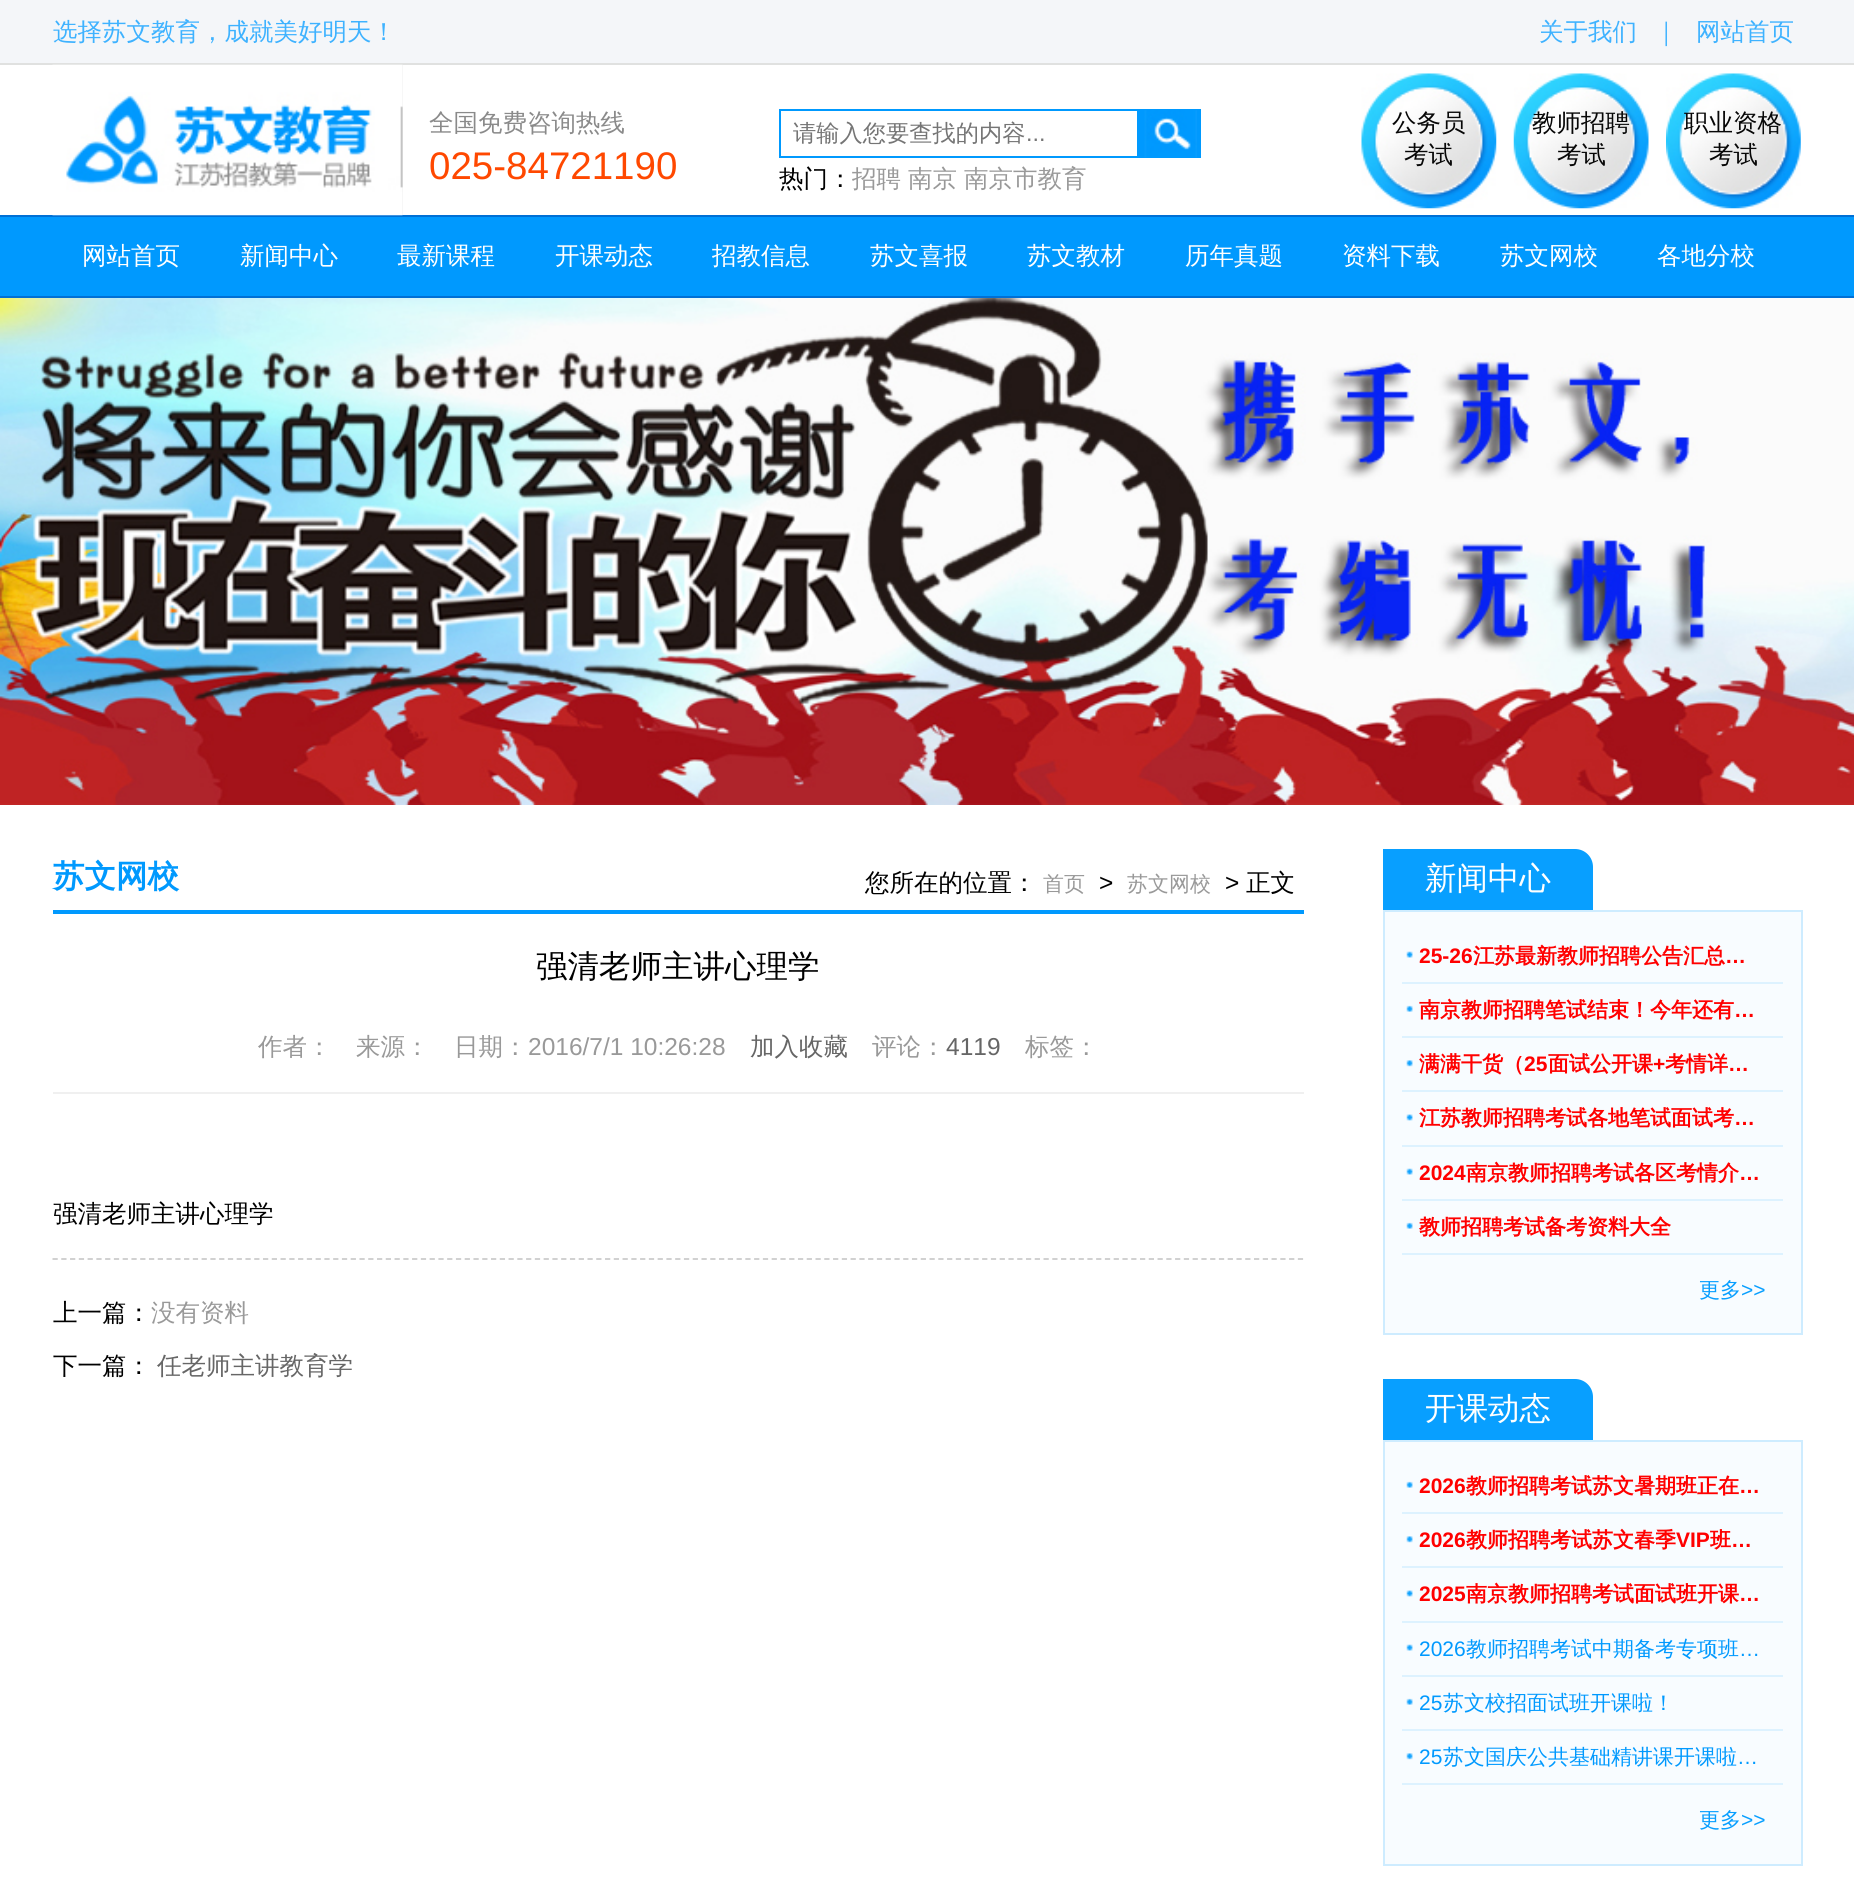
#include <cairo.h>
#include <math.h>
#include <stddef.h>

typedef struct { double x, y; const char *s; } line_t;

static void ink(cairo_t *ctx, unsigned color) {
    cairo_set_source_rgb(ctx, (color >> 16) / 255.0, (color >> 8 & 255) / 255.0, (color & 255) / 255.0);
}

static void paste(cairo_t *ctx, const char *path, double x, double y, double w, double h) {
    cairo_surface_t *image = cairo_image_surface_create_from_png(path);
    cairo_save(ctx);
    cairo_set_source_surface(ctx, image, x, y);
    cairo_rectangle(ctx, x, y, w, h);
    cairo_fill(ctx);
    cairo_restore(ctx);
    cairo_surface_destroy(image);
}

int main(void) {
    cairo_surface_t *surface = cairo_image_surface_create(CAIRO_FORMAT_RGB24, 1854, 1883);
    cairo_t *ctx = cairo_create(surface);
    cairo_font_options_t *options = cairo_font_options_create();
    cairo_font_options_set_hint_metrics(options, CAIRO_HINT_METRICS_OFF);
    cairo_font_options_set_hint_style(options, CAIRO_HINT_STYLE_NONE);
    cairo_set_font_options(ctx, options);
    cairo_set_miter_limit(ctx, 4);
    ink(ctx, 0xFFFFFF);
    cairo_paint(ctx);
    ink(ctx, 0xF4F6F9);
    cairo_rectangle(ctx, 0, 0, 1854, 63);
    cairo_fill(ctx);
    ink(ctx, 0xE0E1E0);
    cairo_rectangle(ctx, 0, 63, 1854, 2);
    cairo_fill(ctx);
    cairo_select_font_face(ctx, "WenQuanYi Zen Hei Medium", CAIRO_FONT_SLANT_NORMAL, CAIRO_FONT_WEIGHT_NORMAL);
    cairo_set_font_size(ctx, 24.5);
    ink(ctx, 0x3EB2FF);
    {
        static const line_t items[] = {
            {53, 40, "选择苏文教育，成就美好明天！"},
            {1539, 40, "关于我们"},
            {1654, 40, "｜"},
            {1696, 40, "网站首页"},
        };
        for (size_t i = 0; i < sizeof items / sizeof *items; i++) {
            cairo_move_to(ctx, items[i].x, items[i].y);
            cairo_show_text(ctx, items[i].s);
        }
    }
    ink(ctx, 0xEEEEEE);
    cairo_rectangle(ctx, 402, 65, 1, 150);
    cairo_fill(ctx);
    ink(ctx, 0x0070D5);
    cairo_rectangle(ctx, 0, 215, 1854, 2);
    cairo_fill(ctx);
    paste(ctx, "media/1.png", 52, 64, 351, 152);
    ink(ctx, 0x8A8A8A);
    cairo_move_to(ctx, 429, 131);
    cairo_show_text(ctx, "全国免费咨询热线");
    cairo_select_font_face(ctx, "Liberation Sans", CAIRO_FONT_SLANT_NORMAL, CAIRO_FONT_WEIGHT_NORMAL);
    cairo_set_font_size(ctx, 38.5);
    ink(ctx, 0xFF4800);
    cairo_move_to(ctx, 429, 179);
    cairo_show_text(ctx, "025-84721190");
    cairo_rectangle(ctx, 780, 110, 358, 47);
    ink(ctx, 0x0099FE);
    cairo_stroke(ctx);
    cairo_select_font_face(ctx, "WenQuanYi Zen Hei Medium", CAIRO_FONT_SLANT_NORMAL, CAIRO_FONT_WEIGHT_NORMAL);
    cairo_set_font_size(ctx, 23.25);
    ink(ctx, 0x757575);
    cairo_move_to(ctx, 793, 141);
    cairo_show_text(ctx, "请输入您要查找的内容");
    cairo_select_font_face(ctx, "Liberation Sans", CAIRO_FONT_SLANT_NORMAL, CAIRO_FONT_WEIGHT_NORMAL);
    cairo_move_to(ctx, 1026, 141);
    cairo_show_text(ctx, "...");
    ink(ctx, 0x0099FE);
    cairo_rectangle(ctx, 1139, 109, 62, 49);
    cairo_fill(ctx);
    paste(ctx, "media/2.png", 1144, 110, 53, 48);
    cairo_select_font_face(ctx, "WenQuanYi Zen Hei Medium", CAIRO_FONT_SLANT_NORMAL, CAIRO_FONT_WEIGHT_NORMAL);
    cairo_set_font_size(ctx, 24.5);
    ink(ctx, 0x000000);
    cairo_move_to(ctx, 779, 187);
    cairo_show_text(ctx, "热门：");
    ink(ctx, 0x999999);
    {
        static const line_t items[] = {
            {852, 187, "招聘"},
            {908, 187, "南京"},
            {964, 187, "南京市教育"},
        };
        for (size_t i = 0; i < sizeof items / sizeof *items; i++) {
            cairo_move_to(ctx, items[i].x, items[i].y);
            cairo_show_text(ctx, items[i].s);
        }
    }
    paste(ctx, "media/3.png", 1361, 73, 136, 136);
    ink(ctx, 0x070707);
    cairo_move_to(ctx, 1392, 131);
    cairo_show_text(ctx, "公务员");
    cairo_move_to(ctx, 1404, 163);
    cairo_show_text(ctx, "考试");
    paste(ctx, "media/4.png", 1513, 73, 136, 136);
    cairo_move_to(ctx, 1532, 131);
    cairo_show_text(ctx, "教师招聘");
    cairo_move_to(ctx, 1557, 163);
    cairo_show_text(ctx, "考试");
    paste(ctx, "media/5.png", 1666, 73, 135, 136);
    cairo_move_to(ctx, 1684, 131);
    cairo_show_text(ctx, "职业资格");
    cairo_move_to(ctx, 1709, 163);
    cairo_show_text(ctx, "考试");
    ink(ctx, 0x0099FE);
    cairo_rectangle(ctx, 0, 217, 1854, 79);
    cairo_fill(ctx);
    ink(ctx, 0x0070D5);
    cairo_rectangle(ctx, 0, 296, 1854, 2);
    cairo_fill(ctx);
    ink(ctx, 0xFFFFFF);
    {
        static const line_t items[] = {
            {82, 264, "网站首页"},
            {240, 264, "新闻中心"},
            {397, 264, "最新课程"},
            {555, 264, "开课动态"},
            {712, 264, "招教信息"},
            {870, 264, "苏文喜报"},
            {1027, 264, "苏文教材"},
            {1185, 264, "历年真题"},
            {1342, 264, "资料下载"},
            {1500, 264, "苏文网校"},
            {1657, 264, "各地分校"},
        };
        for (size_t i = 0; i < sizeof items / sizeof *items; i++) {
            cairo_move_to(ctx, items[i].x, items[i].y);
            cairo_show_text(ctx, items[i].s);
        }
    }
    paste(ctx, "media/6.png", 0, 298, 1854, 507);
    cairo_select_font_face(ctx, "WenQuanYi Zen Hei", CAIRO_FONT_SLANT_NORMAL, CAIRO_FONT_WEIGHT_BOLD);
    cairo_set_font_size(ctx, 31.5);
    ink(ctx, 0x0099FE);
    cairo_move_to(ctx, 53, 887);
    cairo_show_text(ctx, "苏文网校");
    cairo_select_font_face(ctx, "WenQuanYi Zen Hei Medium", CAIRO_FONT_SLANT_NORMAL, CAIRO_FONT_WEIGHT_NORMAL);
    cairo_set_font_size(ctx, 24.5);
    ink(ctx, 0x000000);
    cairo_move_to(ctx, 865, 891);
    cairo_show_text(ctx, "您所在的位置：");
    cairo_set_font_size(ctx, 21);
    ink(ctx, 0x999999);
    cairo_move_to(ctx, 1043, 891);
    cairo_show_text(ctx, "首页");
    cairo_select_font_face(ctx, "Liberation Sans", CAIRO_FONT_SLANT_NORMAL, CAIRO_FONT_WEIGHT_NORMAL);
    cairo_set_font_size(ctx, 24.5);
    ink(ctx, 0x000000);
    cairo_move_to(ctx, 1099, 891);
    cairo_show_text(ctx, ">");
    cairo_select_font_face(ctx, "WenQuanYi Zen Hei Medium", CAIRO_FONT_SLANT_NORMAL, CAIRO_FONT_WEIGHT_NORMAL);
    cairo_set_font_size(ctx, 21);
    ink(ctx, 0x999999);
    cairo_move_to(ctx, 1127, 891);
    cairo_show_text(ctx, "苏文网校");
    cairo_select_font_face(ctx, "Liberation Sans", CAIRO_FONT_SLANT_NORMAL, CAIRO_FONT_WEIGHT_NORMAL);
    cairo_set_font_size(ctx, 24.5);
    ink(ctx, 0x000000);
    cairo_move_to(ctx, 1225, 891);
    cairo_show_text(ctx, ">");
    cairo_select_font_face(ctx, "WenQuanYi Zen Hei Medium", CAIRO_FONT_SLANT_NORMAL, CAIRO_FONT_WEIGHT_NORMAL);
    cairo_move_to(ctx, 1246, 891);
    cairo_show_text(ctx, "正文");
    ink(ctx, 0x0099FE);
    cairo_rectangle(ctx, 53, 910, 1251, 4);
    cairo_fill(ctx);
    cairo_set_font_size(ctx, 31.5);
    ink(ctx, 0x000000);
    cairo_move_to(ctx, 536, 977);
    cairo_show_text(ctx, "强清老师主讲心理学");
    ink(ctx, 0xF0F0F0);
    cairo_rectangle(ctx, 53, 1092, 1251, 2);
    cairo_fill(ctx);
    cairo_set_font_size(ctx, 24.5);
    ink(ctx, 0x999999);
    cairo_move_to(ctx, 258, 1055);
    cairo_show_text(ctx, "作者：　来源：　日期：");
    cairo_select_font_face(ctx, "Liberation Sans", CAIRO_FONT_SLANT_NORMAL, CAIRO_FONT_WEIGHT_NORMAL);
    cairo_move_to(ctx, 528, 1055);
    cairo_show_text(ctx, "2016/7/1 10:26:28");
    cairo_select_font_face(ctx, "WenQuanYi Zen Hei Medium", CAIRO_FONT_SLANT_NORMAL, CAIRO_FONT_WEIGHT_NORMAL);
    ink(ctx, 0x666666);
    cairo_move_to(ctx, 750, 1055);
    cairo_show_text(ctx, "加入收藏");
    ink(ctx, 0x999999);
    cairo_move_to(ctx, 872, 1055);
    cairo_show_text(ctx, "评论：");
    cairo_select_font_face(ctx, "Liberation Sans", CAIRO_FONT_SLANT_NORMAL, CAIRO_FONT_WEIGHT_NORMAL);
    ink(ctx, 0x666666);
    cairo_move_to(ctx, 946, 1055);
    cairo_show_text(ctx, "4119");
    cairo_select_font_face(ctx, "WenQuanYi Zen Hei Medium", CAIRO_FONT_SLANT_NORMAL, CAIRO_FONT_WEIGHT_NORMAL);
    ink(ctx, 0x999999);
    cairo_move_to(ctx, 1025, 1055);
    cairo_show_text(ctx, "标签：");
    ink(ctx, 0x000000);
    cairo_move_to(ctx, 53, 1222);
    cairo_show_text(ctx, "强清老师主讲心理学");
    cairo_new_path(ctx);
    cairo_move_to(ctx, 52.5, 1259);
    cairo_line_to(ctx, 1304, 1259);
    ink(ctx, 0xCCCCCC);
    cairo_set_line_width(ctx, 1.8);
    cairo_set_dash(ctx, (double[]){5.25, 3.52}, 2, 0);
    cairo_stroke(ctx);
    ink(ctx, 0x000000);
    cairo_move_to(ctx, 53, 1321);
    cairo_show_text(ctx, "上一篇：");
    ink(ctx, 0x999999);
    cairo_move_to(ctx, 151, 1321);
    cairo_show_text(ctx, "没有资料");
    ink(ctx, 0x000000);
    cairo_move_to(ctx, 53, 1374);
    cairo_show_text(ctx, "下一篇：");
    ink(ctx, 0x666666);
    cairo_move_to(ctx, 157, 1374);
    cairo_show_text(ctx, "任老师主讲教育学");
    ink(ctx, 0x089FFF);
    cairo_new_path(ctx);
    cairo_move_to(ctx, 1383, 849);
    cairo_line_to(ctx, 1575, 849);
    cairo_curve_to(ctx, 1585, 849, 1593, 857, 1593, 867);
    cairo_line_to(ctx, 1593, 910);
    cairo_line_to(ctx, 1383, 910);
    cairo_close_path(ctx);
    cairo_fill(ctx);
    cairo_set_font_size(ctx, 31.5);
    ink(ctx, 0xFFFFFF);
    cairo_move_to(ctx, 1425, 889);
    cairo_show_text(ctx, "新闻中心");
    ink(ctx, 0xF8FCFF);
    cairo_rectangle(ctx, 1384, 911, 418, 423);
    cairo_fill_preserve(ctx);
    ink(ctx, 0xCEECFF);
    cairo_set_line_width(ctx, 2);
    cairo_set_dash(ctx, NULL, 0, 0);
    cairo_stroke(ctx);
    paste(ctx, "media/7.png", 1406, 951, 7, 7);
    ink(ctx, 0xDDF2FF);
    cairo_rectangle(ctx, 1402, 982, 381, 2);
    cairo_fill(ctx);
    cairo_select_font_face(ctx, "Liberation Sans", CAIRO_FONT_SLANT_NORMAL, CAIRO_FONT_WEIGHT_BOLD);
    cairo_set_font_size(ctx, 21);
    ink(ctx, 0xFF0000);
    cairo_move_to(ctx, 1419, 963);
    cairo_show_text(ctx, "25-26");
    cairo_select_font_face(ctx, "WenQuanYi Zen Hei", CAIRO_FONT_SLANT_NORMAL, CAIRO_FONT_WEIGHT_BOLD);
    cairo_move_to(ctx, 1473, 963);
    cairo_show_text(ctx, "江苏最新教师招聘公告汇总");
    cairo_select_font_face(ctx, "Liberation Sans", CAIRO_FONT_SLANT_NORMAL, CAIRO_FONT_WEIGHT_BOLD);
    cairo_move_to(ctx, 1725, 963);
    cairo_show_text(ctx, "…");
    paste(ctx, "media/8.png", 1406, 1005, 7, 7);
    ink(ctx, 0xDDF2FF);
    cairo_rectangle(ctx, 1402, 1036, 381, 2);
    cairo_fill(ctx);
    cairo_select_font_face(ctx, "WenQuanYi Zen Hei", CAIRO_FONT_SLANT_NORMAL, CAIRO_FONT_WEIGHT_BOLD);
    ink(ctx, 0xFF0000);
    cairo_move_to(ctx, 1419, 1017);
    cairo_show_text(ctx, "南京教师招聘笔试结束！今年还有");
    cairo_select_font_face(ctx, "Liberation Sans", CAIRO_FONT_SLANT_NORMAL, CAIRO_FONT_WEIGHT_BOLD);
    cairo_move_to(ctx, 1734, 1017);
    cairo_show_text(ctx, "…");
    paste(ctx, "media/9.png", 1406, 1060, 7, 7);
    ink(ctx, 0xDDF2FF);
    cairo_rectangle(ctx, 1402, 1090, 381, 2);
    cairo_fill(ctx);
    cairo_select_font_face(ctx, "WenQuanYi Zen Hei", CAIRO_FONT_SLANT_NORMAL, CAIRO_FONT_WEIGHT_BOLD);
    ink(ctx, 0xFF0000);
    cairo_move_to(ctx, 1419, 1071);
    cairo_show_text(ctx, "满满干货（");
    cairo_select_font_face(ctx, "Liberation Sans", CAIRO_FONT_SLANT_NORMAL, CAIRO_FONT_WEIGHT_BOLD);
    cairo_move_to(ctx, 1524, 1071);
    cairo_show_text(ctx, "25");
    cairo_select_font_face(ctx, "WenQuanYi Zen Hei", CAIRO_FONT_SLANT_NORMAL, CAIRO_FONT_WEIGHT_BOLD);
    cairo_move_to(ctx, 1548, 1071);
    cairo_show_text(ctx, "面试公开课");
    cairo_select_font_face(ctx, "Liberation Sans", CAIRO_FONT_SLANT_NORMAL, CAIRO_FONT_WEIGHT_BOLD);
    cairo_move_to(ctx, 1653, 1071);
    cairo_show_text(ctx, "+");
    cairo_select_font_face(ctx, "WenQuanYi Zen Hei", CAIRO_FONT_SLANT_NORMAL, CAIRO_FONT_WEIGHT_BOLD);
    cairo_move_to(ctx, 1665, 1071);
    cairo_show_text(ctx, "考情详");
    cairo_select_font_face(ctx, "Liberation Sans", CAIRO_FONT_SLANT_NORMAL, CAIRO_FONT_WEIGHT_BOLD);
    cairo_move_to(ctx, 1728, 1071);
    cairo_show_text(ctx, "…");
    paste(ctx, "media/10.png", 1406, 1114, 7, 7);
    ink(ctx, 0xDDF2FF);
    cairo_rectangle(ctx, 1402, 1145, 381, 2);
    cairo_fill(ctx);
    cairo_select_font_face(ctx, "WenQuanYi Zen Hei", CAIRO_FONT_SLANT_NORMAL, CAIRO_FONT_WEIGHT_BOLD);
    ink(ctx, 0xFF0000);
    cairo_move_to(ctx, 1419, 1125);
    cairo_show_text(ctx, "江苏教师招聘考试各地笔试面试考");
    cairo_select_font_face(ctx, "Liberation Sans", CAIRO_FONT_SLANT_NORMAL, CAIRO_FONT_WEIGHT_BOLD);
    cairo_move_to(ctx, 1734, 1125);
    cairo_show_text(ctx, "…");
    paste(ctx, "media/7.png", 1406, 1168, 7, 7);
    ink(ctx, 0xDDF2FF);
    cairo_rectangle(ctx, 1402, 1199, 381, 2);
    cairo_fill(ctx);
    ink(ctx, 0xFF0000);
    cairo_move_to(ctx, 1419, 1180);
    cairo_show_text(ctx, "2024");
    cairo_select_font_face(ctx, "WenQuanYi Zen Hei", CAIRO_FONT_SLANT_NORMAL, CAIRO_FONT_WEIGHT_BOLD);
    cairo_move_to(ctx, 1466, 1180);
    cairo_show_text(ctx, "南京教师招聘考试各区考情介");
    cairo_select_font_face(ctx, "Liberation Sans", CAIRO_FONT_SLANT_NORMAL, CAIRO_FONT_WEIGHT_BOLD);
    cairo_move_to(ctx, 1739, 1180);
    cairo_show_text(ctx, "…");
    paste(ctx, "media/8.png", 1406, 1222, 7, 7);
    ink(ctx, 0xDDF2FF);
    cairo_rectangle(ctx, 1402, 1253, 381, 2);
    cairo_fill(ctx);
    cairo_select_font_face(ctx, "WenQuanYi Zen Hei", CAIRO_FONT_SLANT_NORMAL, CAIRO_FONT_WEIGHT_BOLD);
    ink(ctx, 0xFF0000);
    cairo_move_to(ctx, 1419, 1234);
    cairo_show_text(ctx, "教师招聘考试备考资料大全");
    cairo_select_font_face(ctx, "WenQuanYi Zen Hei Medium", CAIRO_FONT_SLANT_NORMAL, CAIRO_FONT_WEIGHT_NORMAL);
    ink(ctx, 0x089FFF);
    cairo_move_to(ctx, 1699, 1297);
    cairo_show_text(ctx, "更多");
    cairo_select_font_face(ctx, "Liberation Sans", CAIRO_FONT_SLANT_NORMAL, CAIRO_FONT_WEIGHT_NORMAL);
    cairo_move_to(ctx, 1741, 1297);
    cairo_show_text(ctx, ">>");
    cairo_new_path(ctx);
    cairo_move_to(ctx, 1383, 1379);
    cairo_line_to(ctx, 1575, 1379);
    cairo_curve_to(ctx, 1585, 1379, 1593, 1387, 1593, 1397);
    cairo_line_to(ctx, 1593, 1440);
    cairo_line_to(ctx, 1383, 1440);
    cairo_close_path(ctx);
    cairo_fill(ctx);
    cairo_select_font_face(ctx, "WenQuanYi Zen Hei Medium", CAIRO_FONT_SLANT_NORMAL, CAIRO_FONT_WEIGHT_NORMAL);
    cairo_set_font_size(ctx, 31.5);
    ink(ctx, 0xFFFFFF);
    cairo_move_to(ctx, 1425, 1419);
    cairo_show_text(ctx, "开课动态");
    ink(ctx, 0xF8FCFF);
    cairo_rectangle(ctx, 1384, 1441, 418, 424);
    cairo_fill_preserve(ctx);
    ink(ctx, 0xCEECFF);
    cairo_stroke(ctx);
    paste(ctx, "media/8.png", 1406, 1481, 7, 7);
    ink(ctx, 0xDDF2FF);
    cairo_rectangle(ctx, 1402, 1512, 381, 2);
    cairo_fill(ctx);
    cairo_select_font_face(ctx, "Liberation Sans", CAIRO_FONT_SLANT_NORMAL, CAIRO_FONT_WEIGHT_BOLD);
    cairo_set_font_size(ctx, 21);
    ink(ctx, 0xFF0000);
    cairo_move_to(ctx, 1419, 1493);
    cairo_show_text(ctx, "2026");
    cairo_select_font_face(ctx, "WenQuanYi Zen Hei", CAIRO_FONT_SLANT_NORMAL, CAIRO_FONT_WEIGHT_BOLD);
    cairo_move_to(ctx, 1466, 1493);
    cairo_show_text(ctx, "教师招聘考试苏文暑期班正在");
    cairo_select_font_face(ctx, "Liberation Sans", CAIRO_FONT_SLANT_NORMAL, CAIRO_FONT_WEIGHT_BOLD);
    cairo_move_to(ctx, 1739, 1493);
    cairo_show_text(ctx, "…");
    paste(ctx, "media/9.png", 1406, 1536, 7, 7);
    ink(ctx, 0xDDF2FF);
    cairo_rectangle(ctx, 1402, 1566, 381, 2);
    cairo_fill(ctx);
    ink(ctx, 0xFF0000);
    cairo_move_to(ctx, 1419, 1547);
    cairo_show_text(ctx, "2026");
    cairo_select_font_face(ctx, "WenQuanYi Zen Hei", CAIRO_FONT_SLANT_NORMAL, CAIRO_FONT_WEIGHT_BOLD);
    cairo_move_to(ctx, 1466, 1547);
    cairo_show_text(ctx, "教师招聘考试苏文春季");
    cairo_select_font_face(ctx, "Liberation Sans", CAIRO_FONT_SLANT_NORMAL, CAIRO_FONT_WEIGHT_BOLD);
    cairo_move_to(ctx, 1676, 1547);
    cairo_show_text(ctx, "VIP");
    cairo_select_font_face(ctx, "WenQuanYi Zen Hei", CAIRO_FONT_SLANT_NORMAL, CAIRO_FONT_WEIGHT_BOLD);
    cairo_move_to(ctx, 1710, 1547);
    cairo_show_text(ctx, "班");
    cairo_select_font_face(ctx, "Liberation Sans", CAIRO_FONT_SLANT_NORMAL, CAIRO_FONT_WEIGHT_BOLD);
    cairo_move_to(ctx, 1731, 1547);
    cairo_show_text(ctx, "…");
    paste(ctx, "media/10.png", 1406, 1590, 7, 7);
    ink(ctx, 0xDDF2FF);
    cairo_rectangle(ctx, 1402, 1621, 381, 2);
    cairo_fill(ctx);
    ink(ctx, 0xFF0000);
    cairo_move_to(ctx, 1419, 1601);
    cairo_show_text(ctx, "2025");
    cairo_select_font_face(ctx, "WenQuanYi Zen Hei", CAIRO_FONT_SLANT_NORMAL, CAIRO_FONT_WEIGHT_BOLD);
    cairo_move_to(ctx, 1466, 1601);
    cairo_show_text(ctx, "南京教师招聘考试面试班开课");
    cairo_select_font_face(ctx, "Liberation Sans", CAIRO_FONT_SLANT_NORMAL, CAIRO_FONT_WEIGHT_BOLD);
    cairo_move_to(ctx, 1739, 1601);
    cairo_show_text(ctx, "…");
    paste(ctx, "media/7.png", 1406, 1644, 7, 7);
    ink(ctx, 0xDDF2FF);
    cairo_rectangle(ctx, 1402, 1675, 381, 2);
    cairo_fill(ctx);
    cairo_select_font_face(ctx, "Liberation Sans", CAIRO_FONT_SLANT_NORMAL, CAIRO_FONT_WEIGHT_NORMAL);
    ink(ctx, 0x0099FE);
    cairo_move_to(ctx, 1419, 1656);
    cairo_show_text(ctx, "2026");
    cairo_select_font_face(ctx, "WenQuanYi Zen Hei Medium", CAIRO_FONT_SLANT_NORMAL, CAIRO_FONT_WEIGHT_NORMAL);
    cairo_move_to(ctx, 1466, 1656);
    cairo_show_text(ctx, "教师招聘考试中期备考专项班");
    cairo_select_font_face(ctx, "Liberation Sans", CAIRO_FONT_SLANT_NORMAL, CAIRO_FONT_WEIGHT_NORMAL);
    cairo_move_to(ctx, 1739, 1656);
    cairo_show_text(ctx, "…");
    paste(ctx, "media/8.png", 1406, 1698, 7, 7);
    ink(ctx, 0xDDF2FF);
    cairo_rectangle(ctx, 1402, 1729, 381, 2);
    cairo_fill(ctx);
    ink(ctx, 0x0099FE);
    cairo_move_to(ctx, 1419, 1710);
    cairo_show_text(ctx, "25");
    cairo_select_font_face(ctx, "WenQuanYi Zen Hei Medium", CAIRO_FONT_SLANT_NORMAL, CAIRO_FONT_WEIGHT_NORMAL);
    cairo_move_to(ctx, 1443, 1710);
    cairo_show_text(ctx, "苏文校招面试班开课啦！");
    paste(ctx, "media/9.png", 1406, 1753, 7, 7);
    ink(ctx, 0xDDF2FF);
    cairo_rectangle(ctx, 1402, 1783, 381, 2);
    cairo_fill(ctx);
    cairo_select_font_face(ctx, "Liberation Sans", CAIRO_FONT_SLANT_NORMAL, CAIRO_FONT_WEIGHT_NORMAL);
    ink(ctx, 0x0099FE);
    cairo_move_to(ctx, 1419, 1764);
    cairo_show_text(ctx, "25");
    cairo_select_font_face(ctx, "WenQuanYi Zen Hei Medium", CAIRO_FONT_SLANT_NORMAL, CAIRO_FONT_WEIGHT_NORMAL);
    cairo_move_to(ctx, 1443, 1764);
    cairo_show_text(ctx, "苏文国庆公共基础精讲课开课啦");
    cairo_select_font_face(ctx, "Liberation Sans", CAIRO_FONT_SLANT_NORMAL, CAIRO_FONT_WEIGHT_NORMAL);
    cairo_move_to(ctx, 1737, 1764);
    cairo_show_text(ctx, "…");
    cairo_select_font_face(ctx, "WenQuanYi Zen Hei Medium", CAIRO_FONT_SLANT_NORMAL, CAIRO_FONT_WEIGHT_NORMAL);
    ink(ctx, 0x089FFF);
    cairo_move_to(ctx, 1699, 1827);
    cairo_show_text(ctx, "更多");
    cairo_select_font_face(ctx, "Liberation Sans", CAIRO_FONT_SLANT_NORMAL, CAIRO_FONT_WEIGHT_NORMAL);
    cairo_move_to(ctx, 1741, 1827);
    cairo_show_text(ctx, ">>");
    cairo_surface_write_to_png(surface, "image.png");
    cairo_font_options_destroy(options);
    cairo_destroy(ctx);
    cairo_surface_destroy(surface);
    return 0;
}
